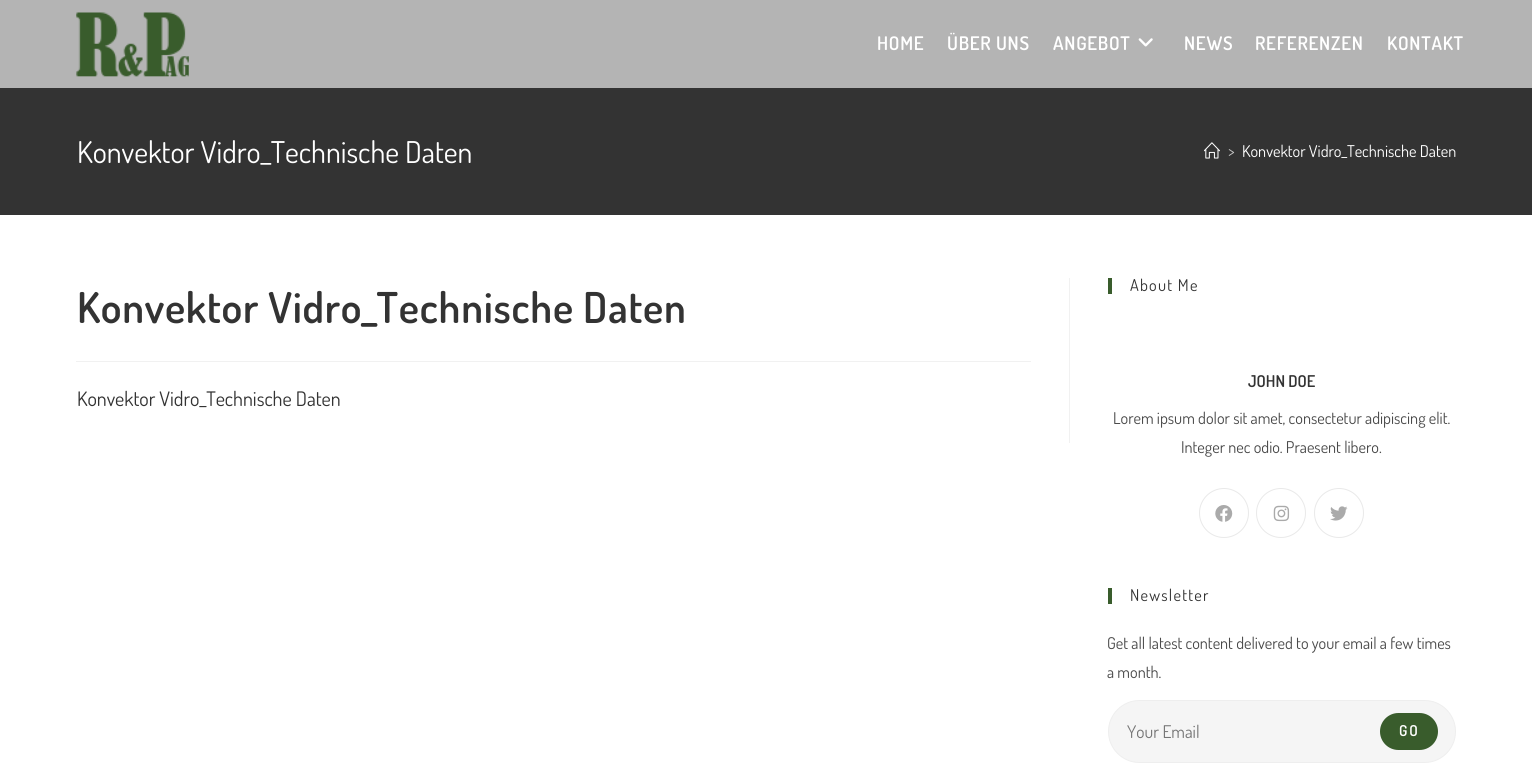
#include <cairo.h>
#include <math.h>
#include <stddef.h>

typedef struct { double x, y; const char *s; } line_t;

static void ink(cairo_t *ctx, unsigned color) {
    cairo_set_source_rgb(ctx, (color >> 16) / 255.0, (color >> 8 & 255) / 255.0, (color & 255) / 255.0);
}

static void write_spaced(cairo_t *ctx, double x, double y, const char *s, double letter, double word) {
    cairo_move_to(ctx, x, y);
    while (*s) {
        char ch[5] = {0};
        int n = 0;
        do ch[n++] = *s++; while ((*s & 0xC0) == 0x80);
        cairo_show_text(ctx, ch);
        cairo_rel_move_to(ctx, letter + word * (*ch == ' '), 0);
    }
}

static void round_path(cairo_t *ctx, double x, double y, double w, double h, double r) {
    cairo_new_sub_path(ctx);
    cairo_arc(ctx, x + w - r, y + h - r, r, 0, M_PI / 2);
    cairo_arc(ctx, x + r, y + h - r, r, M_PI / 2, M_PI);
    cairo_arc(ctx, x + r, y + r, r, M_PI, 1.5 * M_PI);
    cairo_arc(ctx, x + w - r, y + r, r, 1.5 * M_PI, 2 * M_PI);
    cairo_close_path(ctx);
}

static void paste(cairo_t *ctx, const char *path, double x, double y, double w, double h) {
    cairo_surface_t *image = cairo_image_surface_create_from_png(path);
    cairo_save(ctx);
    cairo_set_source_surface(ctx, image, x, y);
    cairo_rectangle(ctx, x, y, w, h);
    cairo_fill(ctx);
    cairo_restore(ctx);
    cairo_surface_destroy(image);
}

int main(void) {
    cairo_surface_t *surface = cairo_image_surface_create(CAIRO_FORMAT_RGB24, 1532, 764);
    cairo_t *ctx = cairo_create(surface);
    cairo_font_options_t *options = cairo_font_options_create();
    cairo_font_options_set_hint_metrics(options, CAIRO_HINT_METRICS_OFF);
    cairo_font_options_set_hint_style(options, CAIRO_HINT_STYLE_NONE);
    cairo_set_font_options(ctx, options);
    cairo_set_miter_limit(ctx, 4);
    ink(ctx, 0xFFFFFF);
    cairo_paint(ctx);
    ink(ctx, 0xB4B4B4);
    cairo_rectangle(ctx, 0, 0, 1532, 88);
    cairo_fill(ctx);
    paste(ctx, "media/1.png", 76, 12, 113, 65);
    cairo_select_font_face(ctx, "Dosis SemiBold", CAIRO_FONT_SLANT_NORMAL, CAIRO_FONT_WEIGHT_NORMAL);
    cairo_set_font_size(ctx, 18.75);
    ink(ctx, 0xFFFFFF);
    {
        static const line_t items[] = {
            {877, 50, "HOME"},
            {947, 50, "ÜBER UNS"},
            {1053, 50, "ANGEBOT"},
        };
        for (size_t i = 0; i < sizeof items / sizeof *items; i++) {
            write_spaced(ctx, items[i].x, items[i].y, items[i].s, 0.75, 0);
        }
    }
    paste(ctx, "media/2.png", 1138, 38, 15, 9);
    {
        static const line_t items[] = {
            {1184, 50, "NEWS"},
            {1255, 50, "REFERENZEN"},
            {1387, 50, "KONTAKT"},
        };
        for (size_t i = 0; i < sizeof items / sizeof *items; i++) {
            write_spaced(ctx, items[i].x, items[i].y, items[i].s, 0.75, 0);
        }
    }
    ink(ctx, 0x333333);
    cairo_rectangle(ctx, 0, 88, 1532, 127);
    cairo_fill(ctx);
    cairo_select_font_face(ctx, "Dosis", CAIRO_FONT_SLANT_NORMAL, CAIRO_FONT_WEIGHT_NORMAL);
    cairo_set_font_size(ctx, 30);
    ink(ctx, 0xFFFFFF);
    cairo_move_to(ctx, 77, 163);
    cairo_show_text(ctx, "Konvektor Vidro_Technische Daten");
    paste(ctx, "media/3.png", 1204, 142, 16, 17);
    cairo_set_font_size(ctx, 16.25);
    ink(ctx, 0xC6C6C6);
    cairo_move_to(ctx, 1228, 157);
    cairo_show_text(ctx, ">");
    ink(ctx, 0xFFFFFF);
    cairo_move_to(ctx, 1242, 157);
    cairo_show_text(ctx, "Konvektor Vidro_Technische Daten");
    ink(ctx, 0xF1F1F1);
    cairo_rectangle(ctx, 1069, 278, 1, 165);
    cairo_fill(ctx);
    cairo_rectangle(ctx, 76, 361, 955, 1);
    cairo_fill(ctx);
    cairo_select_font_face(ctx, "Dosis SemiBold", CAIRO_FONT_SLANT_NORMAL, CAIRO_FONT_WEIGHT_NORMAL);
    cairo_set_font_size(ctx, 42.5);
    ink(ctx, 0x333333);
    write_spaced(ctx, 77, 323, "Konvektor Vidro_Technische Daten", 0.75, 0);
    cairo_select_font_face(ctx, "Dosis", CAIRO_FONT_SLANT_NORMAL, CAIRO_FONT_WEIGHT_NORMAL);
    cairo_set_font_size(ctx, 20);
    cairo_move_to(ctx, 77, 406);
    cairo_show_text(ctx, "Konvektor Vidro_Technische Daten");
    ink(ctx, 0x395C2C);
    cairo_rectangle(ctx, 1108, 278, 4, 16);
    cairo_fill(ctx);
    cairo_set_font_size(ctx, 16.25);
    ink(ctx, 0x333333);
    write_spaced(ctx, 1130, 291, "About Me", 1.25, 0);
    cairo_select_font_face(ctx, "Dosis SemiBold", CAIRO_FONT_SLANT_NORMAL, CAIRO_FONT_WEIGHT_NORMAL);
    cairo_move_to(ctx, 1248, 387);
    cairo_show_text(ctx, "JOHN DOE");
    cairo_select_font_face(ctx, "Dosis", CAIRO_FONT_SLANT_NORMAL, CAIRO_FONT_WEIGHT_NORMAL);
    ink(ctx, 0x4A4A4A);
    cairo_move_to(ctx, 1113, 424);
    cairo_show_text(ctx, "Lorem ipsum dolor sit amet, consectetur adipiscing elit.");
    cairo_move_to(ctx, 1181, 453);
    cairo_show_text(ctx, "Integer nec odio. Praesent libero.");
    cairo_new_path(ctx);
    cairo_arc(ctx, 1224, 513, 24.5, 0, 2 * M_PI);
    ink(ctx, 0xE9E9E9);
    cairo_set_line_width(ctx, 1);
    cairo_stroke(ctx);
    paste(ctx, "media/4.png", 1215, 505, 18, 17);
    cairo_arc(ctx, 1281, 513, 24.5, 0, 2 * M_PI);
    cairo_stroke(ctx);
    paste(ctx, "media/5.png", 1273, 505, 17, 17);
    cairo_arc(ctx, 1339, 513, 24.5, 0, 2 * M_PI);
    cairo_stroke(ctx);
    paste(ctx, "media/6.png", 1330, 506, 18, 15);
    ink(ctx, 0x395C2C);
    cairo_rectangle(ctx, 1108, 588, 4, 16);
    cairo_fill(ctx);
    ink(ctx, 0x333333);
    write_spaced(ctx, 1130, 601, "Newsletter", 1.25, 0);
    ink(ctx, 0x4A4A4A);
    cairo_move_to(ctx, 1107, 649);
    cairo_show_text(ctx, "Get all latest content delivered to your email a few times");
    cairo_move_to(ctx, 1107, 678);
    cairo_show_text(ctx, "a month.");
    ink(ctx, 0xF5F5F5);
    round_path(ctx, 1108.5, 700.5, 347, 62, 31);
    cairo_fill_preserve(ctx);
    ink(ctx, 0xEEEEEE);
    cairo_stroke(ctx);
    cairo_set_font_size(ctx, 17.5);
    ink(ctx, 0x757575);
    cairo_move_to(ctx, 1127, 738);
    cairo_show_text(ctx, "Your Email");
    ink(ctx, 0x395C2C);
    round_path(ctx, 1380, 713, 58, 37, 18.5);
    cairo_fill(ctx);
    cairo_select_font_face(ctx, "Dosis SemiBold", CAIRO_FONT_SLANT_NORMAL, CAIRO_FONT_WEIGHT_NORMAL);
    cairo_set_font_size(ctx, 15);
    ink(ctx, 0xFFFFFF);
    write_spaced(ctx, 1399, 736, "GO", 2, 0);
    cairo_surface_write_to_png(surface, "image.png");
    cairo_font_options_destroy(options);
    cairo_destroy(ctx);
    cairo_surface_destroy(surface);
    return 0;
}
